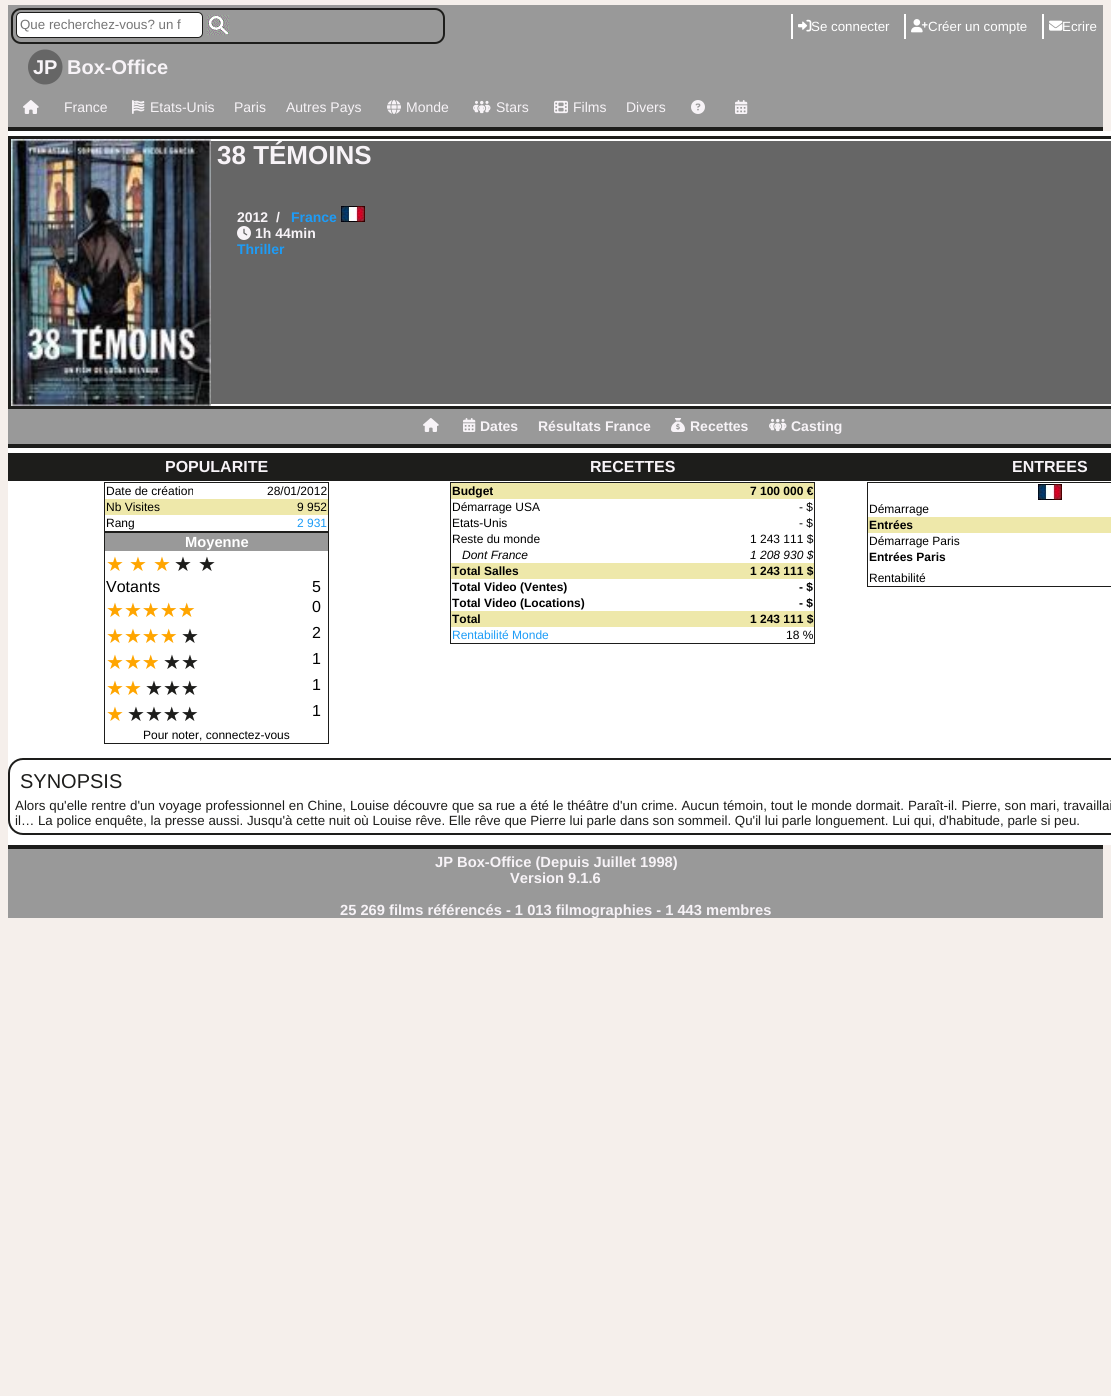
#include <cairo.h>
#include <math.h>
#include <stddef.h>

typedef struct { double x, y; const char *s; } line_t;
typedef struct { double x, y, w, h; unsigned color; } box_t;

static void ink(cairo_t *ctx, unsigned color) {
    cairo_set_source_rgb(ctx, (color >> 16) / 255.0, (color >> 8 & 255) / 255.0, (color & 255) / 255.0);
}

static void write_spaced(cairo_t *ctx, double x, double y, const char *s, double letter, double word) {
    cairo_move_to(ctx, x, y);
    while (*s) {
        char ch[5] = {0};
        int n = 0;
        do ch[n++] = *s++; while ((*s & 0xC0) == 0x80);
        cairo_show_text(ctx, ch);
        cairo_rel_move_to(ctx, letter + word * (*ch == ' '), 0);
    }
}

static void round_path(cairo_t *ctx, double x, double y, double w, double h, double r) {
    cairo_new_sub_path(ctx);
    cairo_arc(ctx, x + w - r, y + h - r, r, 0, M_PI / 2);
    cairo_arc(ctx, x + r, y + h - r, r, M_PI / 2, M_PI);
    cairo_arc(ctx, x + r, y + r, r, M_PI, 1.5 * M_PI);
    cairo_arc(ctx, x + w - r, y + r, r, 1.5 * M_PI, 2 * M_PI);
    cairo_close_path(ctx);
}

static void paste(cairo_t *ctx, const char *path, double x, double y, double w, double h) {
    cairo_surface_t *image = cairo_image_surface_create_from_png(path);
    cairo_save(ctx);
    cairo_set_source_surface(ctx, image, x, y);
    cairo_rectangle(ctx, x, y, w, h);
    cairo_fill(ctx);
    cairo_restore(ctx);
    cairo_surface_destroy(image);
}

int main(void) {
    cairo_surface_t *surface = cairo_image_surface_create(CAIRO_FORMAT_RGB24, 1111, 1396);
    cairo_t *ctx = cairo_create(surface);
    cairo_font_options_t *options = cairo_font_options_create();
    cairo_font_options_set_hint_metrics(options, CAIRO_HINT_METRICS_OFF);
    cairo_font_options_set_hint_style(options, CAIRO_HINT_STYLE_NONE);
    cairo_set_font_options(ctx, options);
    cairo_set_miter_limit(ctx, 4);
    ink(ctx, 0xF5EFEB);
    cairo_paint(ctx);
    ink(ctx, 0x999999);
    cairo_rectangle(ctx, 8, 5, 1095, 122);
    cairo_fill(ctx);
    round_path(ctx, 12, 9, 432, 34, 9);
    ink(ctx, 0x1D1D1B);
    cairo_stroke(ctx);
    ink(ctx, 0xFFFFFF);
    round_path(ctx, 16.5, 12.5, 186, 25, 4.5);
    cairo_fill_preserve(ctx);
    ink(ctx, 0x1D1D1B);
    cairo_set_line_width(ctx, 1);
    cairo_stroke(ctx);
    cairo_select_font_face(ctx, "Liberation Sans", CAIRO_FONT_SLANT_NORMAL, CAIRO_FONT_WEIGHT_NORMAL);
    cairo_set_font_size(ctx, 13.33);
    ink(ctx, 0x757575);
    cairo_move_to(ctx, 20, 29);
    cairo_show_text(ctx, "Que recherchez-vous? un f");
    paste(ctx, "media/1.png", 207, 15, 22, 20);
    ink(ctx, 0xFFFFFF);
    cairo_rectangle(ctx, 791, 14, 2, 25);
    cairo_fill(ctx);
    paste(ctx, "media/2.png", 798, 19, 14, 13);
    cairo_move_to(ctx, 811, 31);
    cairo_show_text(ctx, "Se connecter");
    cairo_rectangle(ctx, 904, 14, 2, 25);
    cairo_fill(ctx);
    paste(ctx, "media/3.png", 911, 19, 17, 14);
    cairo_move_to(ctx, 928, 31);
    cairo_show_text(ctx, "Créer un compte");
    cairo_rectangle(ctx, 1042, 14, 2, 25);
    cairo_fill(ctx);
    paste(ctx, "media/4.png", 1049, 20, 14, 11);
    cairo_move_to(ctx, 1062, 31);
    cairo_show_text(ctx, "Ecrire");
    ink(ctx, 0x1D1D1B);
    cairo_rectangle(ctx, 8, 127, 1095, 4);
    cairo_fill(ctx);
    ink(ctx, 0x666666);
    cairo_new_path(ctx);
    cairo_move_to(ctx, 45, 49.5);
    cairo_curve_to(ctx, 35.5, 49.5, 28, 57.5, 28, 67);
    cairo_curve_to(ctx, 28, 76.5, 35.5, 84.5, 45, 84.5);
    cairo_curve_to(ctx, 55, 84.5, 62.5, 76.5, 62.5, 67);
    cairo_curve_to(ctx, 62.5, 57.5, 55, 49.5, 45, 49.5);
    cairo_close_path(ctx);
    cairo_fill(ctx);
    cairo_select_font_face(ctx, "Liberation Sans", CAIRO_FONT_SLANT_NORMAL, CAIRO_FONT_WEIGHT_BOLD);
    cairo_set_font_size(ctx, 20);
    ink(ctx, 0xF7F3F7);
    cairo_move_to(ctx, 33, 74);
    cairo_show_text(ctx, "JP");
    cairo_move_to(ctx, 67, 74);
    cairo_show_text(ctx, "Box-Office");
    paste(ctx, "media/5.png", 23, 100, 16, 14);
    cairo_select_font_face(ctx, "Liberation Sans", CAIRO_FONT_SLANT_NORMAL, CAIRO_FONT_WEIGHT_NORMAL);
    cairo_set_font_size(ctx, 14);
    cairo_move_to(ctx, 64, 112);
    cairo_show_text(ctx, "France");
    paste(ctx, "media/6.png", 132, 100, 13, 14);
    {
        static const line_t items[] = {
            {150, 112, "Etats-Unis"},
            {234, 112, "Paris"},
            {286, 112, "Autres Pays"},
        };
        for (size_t i = 0; i < sizeof items / sizeof *items; i++) {
            cairo_move_to(ctx, items[i].x, items[i].y);
            cairo_show_text(ctx, items[i].s);
        }
    }
    paste(ctx, "media/7.png", 387, 100, 14, 14);
    cairo_move_to(ctx, 406, 112);
    cairo_show_text(ctx, "Monde");
    paste(ctx, "media/8.png", 473, 100, 18, 14);
    cairo_move_to(ctx, 496, 112);
    cairo_show_text(ctx, "Stars");
    paste(ctx, "media/9.png", 554, 100, 14, 14);
    cairo_move_to(ctx, 573, 112);
    cairo_show_text(ctx, "Films");
    cairo_move_to(ctx, 626, 112);
    cairo_show_text(ctx, "Divers");
    paste(ctx, "media/10.png", 691, 100, 14, 14);
    paste(ctx, "media/11.png", 735, 100, 13, 14);
    {
        static const box_t items[] = {
            {8, 131, 1103, 714, 0xFFFFFF},
            {8, 136, 1103, 3, 0x1D1D1B},
            {8, 406, 1103, 3, 0x1D1D1B},
            {8, 136, 3, 273, 0x1D1D1B},
        };
        for (size_t i = 0; i < sizeof items / sizeof *items; i++) {
            ink(ctx, items[i].color);
            cairo_rectangle(ctx, items[i].x, items[i].y, items[i].w, items[i].h);
            cairo_fill(ctx);
        }
    }
    paste(ctx, "media/12.png", 11, 139, 200, 267);
    ink(ctx, 0x666666);
    cairo_rectangle(ctx, 211, 141, 900, 263);
    cairo_fill(ctx);
    cairo_select_font_face(ctx, "Liberation Sans", CAIRO_FONT_SLANT_NORMAL, CAIRO_FONT_WEIGHT_BOLD);
    cairo_set_font_size(ctx, 26);
    ink(ctx, 0xF7F3F7);
    cairo_move_to(ctx, 217, 164);
    cairo_show_text(ctx, "38 TÉMOINS");
    cairo_set_font_size(ctx, 14);
    cairo_move_to(ctx, 237, 222);
    cairo_show_text(ctx, "2012  /");
    ink(ctx, 0x1D9CF7);
    cairo_move_to(ctx, 291, 222);
    cairo_show_text(ctx, "France");
    paste(ctx, "media/13.png", 341, 206, 24, 16);
    paste(ctx, "media/14.png", 237, 226, 14, 14);
    ink(ctx, 0xF7F3F7);
    cairo_move_to(ctx, 255, 238);
    cairo_show_text(ctx, "1h 44min");
    ink(ctx, 0x1D9CF7);
    cairo_move_to(ctx, 237, 254);
    cairo_show_text(ctx, "Thriller");
    ink(ctx, 0x999999);
    cairo_rectangle(ctx, 8, 409, 1103, 35);
    cairo_fill(ctx);
    ink(ctx, 0x1D1D1B);
    cairo_rectangle(ctx, 8, 444, 1103, 4);
    cairo_fill(ctx);
    paste(ctx, "media/5.png", 423, 418, 16, 14);
    paste(ctx, "media/11.png", 463, 418, 13, 14);
    ink(ctx, 0xF7F3F7);
    cairo_move_to(ctx, 480, 431);
    cairo_show_text(ctx, "Dates");
    cairo_move_to(ctx, 538, 431);
    cairo_show_text(ctx, "Résultats France");
    paste(ctx, "media/15.png", 671, 418, 14, 14);
    cairo_move_to(ctx, 690, 431);
    cairo_show_text(ctx, "Recettes");
    paste(ctx, "media/8.png", 769, 418, 18, 14);
    cairo_move_to(ctx, 791, 431);
    cairo_show_text(ctx, "Casting");
    ink(ctx, 0x1D1D1B);
    cairo_rectangle(ctx, 8, 453, 1103, 28);
    cairo_fill(ctx);
    cairo_set_font_size(ctx, 16);
    ink(ctx, 0xF7F3F7);
    {
        static const line_t items[] = {
            {165, 472, "POPULARITE"},
            {590, 472, "RECETTES"},
            {1012, 472, "ENTREES"},
        };
        for (size_t i = 0; i < sizeof items / sizeof *items; i++) {
            cairo_move_to(ctx, items[i].x, items[i].y);
            cairo_show_text(ctx, items[i].s);
        }
    }
    {
        static const box_t items[] = {
            {104, 482, 225, 1, 0x1D1D1B},
            {328, 482, 1, 50, 0x1D1D1B},
            {104, 531, 225, 2, 0x1D1D1B},
            {104, 482, 1, 50, 0x1D1D1B},
        };
        for (size_t i = 0; i < sizeof items / sizeof *items; i++) {
            ink(ctx, items[i].color);
            cairo_rectangle(ctx, items[i].x, items[i].y, items[i].w, items[i].h);
            cairo_fill(ctx);
        }
    }
    cairo_select_font_face(ctx, "Liberation Sans", CAIRO_FONT_SLANT_NORMAL, CAIRO_FONT_WEIGHT_NORMAL);
    cairo_set_font_size(ctx, 12);
    ink(ctx, 0x000000);
    cairo_move_to(ctx, 106, 495);
    cairo_show_text(ctx, "Date de création");
    cairo_move_to(ctx, 267, 495);
    cairo_show_text(ctx, "28/01/2012");
    ink(ctx, 0xEEE8AA);
    cairo_rectangle(ctx, 105, 499, 223, 16);
    cairo_fill(ctx);
    ink(ctx, 0x000000);
    {
        static const line_t items[] = {
            {106, 511, "Nb Visites"},
            {297, 511, "9 952"},
            {106, 527, "Rang"},
        };
        for (size_t i = 0; i < sizeof items / sizeof *items; i++) {
            cairo_move_to(ctx, items[i].x, items[i].y);
            cairo_show_text(ctx, items[i].s);
        }
    }
    ink(ctx, 0x1D9CF7);
    cairo_move_to(ctx, 297, 527);
    cairo_show_text(ctx, "2 931");
    {
        static const box_t items[] = {
            {328, 532, 1, 212, 0x1D1D1B},
            {104, 743, 225, 1, 0x1D1D1B},
            {104, 532, 1, 212, 0x1D1D1B},
            {105, 533, 223, 18, 0x999999},
        };
        for (size_t i = 0; i < sizeof items / sizeof *items; i++) {
            ink(ctx, items[i].color);
            cairo_rectangle(ctx, items[i].x, items[i].y, items[i].w, items[i].h);
            cairo_fill(ctx);
        }
    }
    cairo_select_font_face(ctx, "Liberation Sans", CAIRO_FONT_SLANT_NORMAL, CAIRO_FONT_WEIGHT_BOLD);
    cairo_set_font_size(ctx, 14.7);
    ink(ctx, 0xFFFFFF);
    cairo_move_to(ctx, 185, 547);
    cairo_show_text(ctx, "Moyenne");
    cairo_select_font_face(ctx, "DejaVu Sans", CAIRO_FONT_SLANT_NORMAL, CAIRO_FONT_WEIGHT_NORMAL);
    cairo_set_font_size(ctx, 20);
    ink(ctx, 0xFFA500);
    {
        static const line_t items[] = {
            {106, 571, "★"},
            {129, 571, "★"},
            {153, 571, "★"},
        };
        for (size_t i = 0; i < sizeof items / sizeof *items; i++) {
            cairo_move_to(ctx, items[i].x, items[i].y);
            cairo_show_text(ctx, items[i].s);
        }
    }
    ink(ctx, 0x1D1D1B);
    cairo_move_to(ctx, 174, 571);
    cairo_show_text(ctx, "★");
    cairo_move_to(ctx, 198, 571);
    cairo_show_text(ctx, "★");
    cairo_select_font_face(ctx, "Liberation Sans", CAIRO_FONT_SLANT_NORMAL, CAIRO_FONT_WEIGHT_NORMAL);
    cairo_set_font_size(ctx, 16);
    ink(ctx, 0x000000);
    cairo_move_to(ctx, 106, 592);
    cairo_show_text(ctx, "Votants");
    cairo_move_to(ctx, 312, 592);
    cairo_show_text(ctx, "5");
    cairo_select_font_face(ctx, "DejaVu Sans", CAIRO_FONT_SLANT_NORMAL, CAIRO_FONT_WEIGHT_NORMAL);
    cairo_set_font_size(ctx, 20);
    ink(ctx, 0xFFA500);
    cairo_move_to(ctx, 106, 617);
    cairo_show_text(ctx, "★★★★★");
    cairo_select_font_face(ctx, "Liberation Sans", CAIRO_FONT_SLANT_NORMAL, CAIRO_FONT_WEIGHT_NORMAL);
    cairo_set_font_size(ctx, 16);
    ink(ctx, 0x000000);
    cairo_move_to(ctx, 312, 612);
    cairo_show_text(ctx, "0");
    cairo_select_font_face(ctx, "DejaVu Sans", CAIRO_FONT_SLANT_NORMAL, CAIRO_FONT_WEIGHT_NORMAL);
    cairo_set_font_size(ctx, 20);
    ink(ctx, 0xFFA500);
    cairo_move_to(ctx, 106, 643);
    cairo_show_text(ctx, "★★★★");
    ink(ctx, 0x1D1D1B);
    cairo_move_to(ctx, 181, 643);
    cairo_show_text(ctx, "★");
    cairo_select_font_face(ctx, "Liberation Sans", CAIRO_FONT_SLANT_NORMAL, CAIRO_FONT_WEIGHT_NORMAL);
    cairo_set_font_size(ctx, 16);
    ink(ctx, 0x000000);
    cairo_move_to(ctx, 312, 638);
    cairo_show_text(ctx, "2");
    cairo_select_font_face(ctx, "DejaVu Sans", CAIRO_FONT_SLANT_NORMAL, CAIRO_FONT_WEIGHT_NORMAL);
    cairo_set_font_size(ctx, 20);
    ink(ctx, 0xFFA500);
    cairo_move_to(ctx, 106, 669);
    cairo_show_text(ctx, "★★★");
    ink(ctx, 0x1D1D1B);
    cairo_move_to(ctx, 163, 669);
    cairo_show_text(ctx, "★★");
    cairo_select_font_face(ctx, "Liberation Sans", CAIRO_FONT_SLANT_NORMAL, CAIRO_FONT_WEIGHT_NORMAL);
    cairo_set_font_size(ctx, 16);
    ink(ctx, 0x000000);
    cairo_move_to(ctx, 312, 664);
    cairo_show_text(ctx, "1");
    cairo_select_font_face(ctx, "DejaVu Sans", CAIRO_FONT_SLANT_NORMAL, CAIRO_FONT_WEIGHT_NORMAL);
    cairo_set_font_size(ctx, 20);
    ink(ctx, 0xFFA500);
    cairo_move_to(ctx, 106, 695);
    cairo_show_text(ctx, "★★");
    ink(ctx, 0x1D1D1B);
    cairo_move_to(ctx, 145, 695);
    cairo_show_text(ctx, "★★★");
    cairo_select_font_face(ctx, "Liberation Sans", CAIRO_FONT_SLANT_NORMAL, CAIRO_FONT_WEIGHT_NORMAL);
    cairo_set_font_size(ctx, 16);
    ink(ctx, 0x000000);
    cairo_move_to(ctx, 312, 690);
    cairo_show_text(ctx, "1");
    cairo_select_font_face(ctx, "DejaVu Sans", CAIRO_FONT_SLANT_NORMAL, CAIRO_FONT_WEIGHT_NORMAL);
    cairo_set_font_size(ctx, 20);
    ink(ctx, 0xFFA500);
    cairo_move_to(ctx, 106, 721);
    cairo_show_text(ctx, "★");
    ink(ctx, 0x1D1D1B);
    cairo_move_to(ctx, 127, 721);
    cairo_show_text(ctx, "★★★★");
    cairo_select_font_face(ctx, "Liberation Sans", CAIRO_FONT_SLANT_NORMAL, CAIRO_FONT_WEIGHT_NORMAL);
    cairo_set_font_size(ctx, 16);
    ink(ctx, 0x000000);
    cairo_move_to(ctx, 312, 716);
    cairo_show_text(ctx, "1");
    cairo_set_font_size(ctx, 12);
    cairo_move_to(ctx, 143, 739);
    cairo_show_text(ctx, "Pour noter, connectez-vous");
    {
        static const box_t items[] = {
            {450, 482, 365, 1, 0x1D1D1B},
            {814, 482, 1, 162, 0x1D1D1B},
            {450, 643, 365, 1, 0x1D1D1B},
            {450, 482, 1, 162, 0x1D1D1B},
            {451, 483, 363, 16, 0xEEE8AA},
        };
        for (size_t i = 0; i < sizeof items / sizeof *items; i++) {
            ink(ctx, items[i].color);
            cairo_rectangle(ctx, items[i].x, items[i].y, items[i].w, items[i].h);
            cairo_fill(ctx);
        }
    }
    cairo_select_font_face(ctx, "Liberation Sans", CAIRO_FONT_SLANT_NORMAL, CAIRO_FONT_WEIGHT_BOLD);
    ink(ctx, 0x000000);
    cairo_move_to(ctx, 452, 495);
    cairo_show_text(ctx, "Budget");
    cairo_move_to(ctx, 750, 495);
    cairo_show_text(ctx, "7 100 000 €");
    cairo_select_font_face(ctx, "Liberation Sans", CAIRO_FONT_SLANT_NORMAL, CAIRO_FONT_WEIGHT_NORMAL);
    {
        static const line_t items[] = {
            {452, 511, "Démarrage USA"},
            {799, 511, "- $"},
            {452, 527, "Etats-Unis"},
            {799, 527, "- $"},
            {452, 543, "Reste du monde"},
            {750, 543, "1 243 111 $"},
        };
        for (size_t i = 0; i < sizeof items / sizeof *items; i++) {
            cairo_move_to(ctx, items[i].x, items[i].y);
            cairo_show_text(ctx, items[i].s);
        }
    }
    cairo_select_font_face(ctx, "Liberation Sans", CAIRO_FONT_SLANT_ITALIC, CAIRO_FONT_WEIGHT_NORMAL);
    cairo_move_to(ctx, 462, 559);
    cairo_show_text(ctx, "Dont France");
    cairo_move_to(ctx, 750, 559);
    cairo_show_text(ctx, "1 208 930 $");
    ink(ctx, 0xEEE8AA);
    cairo_rectangle(ctx, 451, 563, 363, 16);
    cairo_fill(ctx);
    cairo_select_font_face(ctx, "Liberation Sans", CAIRO_FONT_SLANT_NORMAL, CAIRO_FONT_WEIGHT_BOLD);
    ink(ctx, 0x000000);
    {
        static const line_t items[] = {
            {452, 575, "Total Salles"},
            {750, 575, "1 243 111 $"},
            {452, 591, "Total Video (Ventes)"},
            {799, 591, "- $"},
            {452, 607, "Total Video (Locations)"},
            {799, 607, "- $"},
        };
        for (size_t i = 0; i < sizeof items / sizeof *items; i++) {
            cairo_move_to(ctx, items[i].x, items[i].y);
            cairo_show_text(ctx, items[i].s);
        }
    }
    ink(ctx, 0xEEE8AA);
    cairo_rectangle(ctx, 451, 611, 363, 16);
    cairo_fill(ctx);
    ink(ctx, 0x000000);
    cairo_move_to(ctx, 452, 623);
    cairo_show_text(ctx, "Total");
    cairo_move_to(ctx, 750, 623);
    cairo_show_text(ctx, "1 243 111 $");
    cairo_select_font_face(ctx, "Liberation Sans", CAIRO_FONT_SLANT_NORMAL, CAIRO_FONT_WEIGHT_NORMAL);
    ink(ctx, 0x1D9CF7);
    cairo_move_to(ctx, 452, 639);
    cairo_show_text(ctx, "Rentabilité Monde");
    ink(ctx, 0x000000);
    cairo_move_to(ctx, 786, 639);
    cairo_show_text(ctx, "18 %");
    {
        static const box_t items[] = {
            {867, 482, 244, 1, 0x1D1D1B},
            {867, 586, 244, 1, 0x1D1D1B},
            {867, 482, 1, 105, 0x1D1D1B},
        };
        for (size_t i = 0; i < sizeof items / sizeof *items; i++) {
            ink(ctx, items[i].color);
            cairo_rectangle(ctx, items[i].x, items[i].y, items[i].w, items[i].h);
            cairo_fill(ctx);
        }
    }
    paste(ctx, "media/13.png", 1038, 484, 24, 16);
    ink(ctx, 0x000000);
    cairo_move_to(ctx, 869, 513);
    cairo_show_text(ctx, "Démarrage");
    ink(ctx, 0xEEE8AA);
    cairo_rectangle(ctx, 868, 517, 243, 16);
    cairo_fill(ctx);
    cairo_select_font_face(ctx, "Liberation Sans", CAIRO_FONT_SLANT_NORMAL, CAIRO_FONT_WEIGHT_BOLD);
    ink(ctx, 0x000000);
    cairo_move_to(ctx, 869, 529);
    cairo_show_text(ctx, "Entrées");
    cairo_select_font_face(ctx, "Liberation Sans", CAIRO_FONT_SLANT_NORMAL, CAIRO_FONT_WEIGHT_NORMAL);
    cairo_move_to(ctx, 869, 545);
    cairo_show_text(ctx, "Démarrage Paris");
    cairo_select_font_face(ctx, "Liberation Sans", CAIRO_FONT_SLANT_NORMAL, CAIRO_FONT_WEIGHT_BOLD);
    cairo_move_to(ctx, 869, 561);
    cairo_show_text(ctx, "Entrées Paris");
    cairo_select_font_face(ctx, "Liberation Sans", CAIRO_FONT_SLANT_NORMAL, CAIRO_FONT_WEIGHT_NORMAL);
    cairo_move_to(ctx, 869, 582);
    cairo_show_text(ctx, "Rentabilité");
    round_path(ctx, 9, 759, 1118, 75, 14);
    ink(ctx, 0x1D1D1B);
    cairo_set_line_width(ctx, 2);
    cairo_stroke(ctx);
    cairo_set_font_size(ctx, 20);
    cairo_move_to(ctx, 20, 788);
    cairo_show_text(ctx, "SYNOPSIS");
    cairo_set_font_size(ctx, 13.33);
    write_spaced(ctx, 15, 810, "Alors qu'elle rentre d'un voyage professionnel en Chine, Louise découvre que sa rue a été le théâtre d'un crime. Aucun témoin, tout le monde dormait. Paraît-il. Pierre, son mari, travaillai", 0, 0.2);
    cairo_move_to(ctx, 15, 825);
    cairo_show_text(ctx, "il… La police enquête, la presse aussi. Jusqu'à cette nuit où Louise rêve. Elle rêve que Pierre lui parle dans son sommeil. Qu'il lui parle longuement. Lui qui, d'habitude, parle si peu.");
    ink(ctx, 0x999999);
    cairo_rectangle(ctx, 8, 849, 1095, 69);
    cairo_fill(ctx);
    ink(ctx, 0x1D1D1B);
    cairo_rectangle(ctx, 8, 845, 1095, 4);
    cairo_fill(ctx);
    cairo_select_font_face(ctx, "Liberation Sans", CAIRO_FONT_SLANT_NORMAL, CAIRO_FONT_WEIGHT_BOLD);
    cairo_set_font_size(ctx, 14.7);
    ink(ctx, 0xF7F3F7);
    {
        static const line_t items[] = {
            {435, 867, "JP Box-Office (Depuis Juillet 1998)"},
            {510, 883, "Version 9.1.6"},
            {340, 915, "25 269 films référencés - 1 013 filmographies - 1 443 membres"},
        };
        for (size_t i = 0; i < sizeof items / sizeof *items; i++) {
            cairo_move_to(ctx, items[i].x, items[i].y);
            cairo_show_text(ctx, items[i].s);
        }
    }
    cairo_surface_write_to_png(surface, "image.png");
    cairo_font_options_destroy(options);
    cairo_destroy(ctx);
    cairo_surface_destroy(surface);
    return 0;
}
